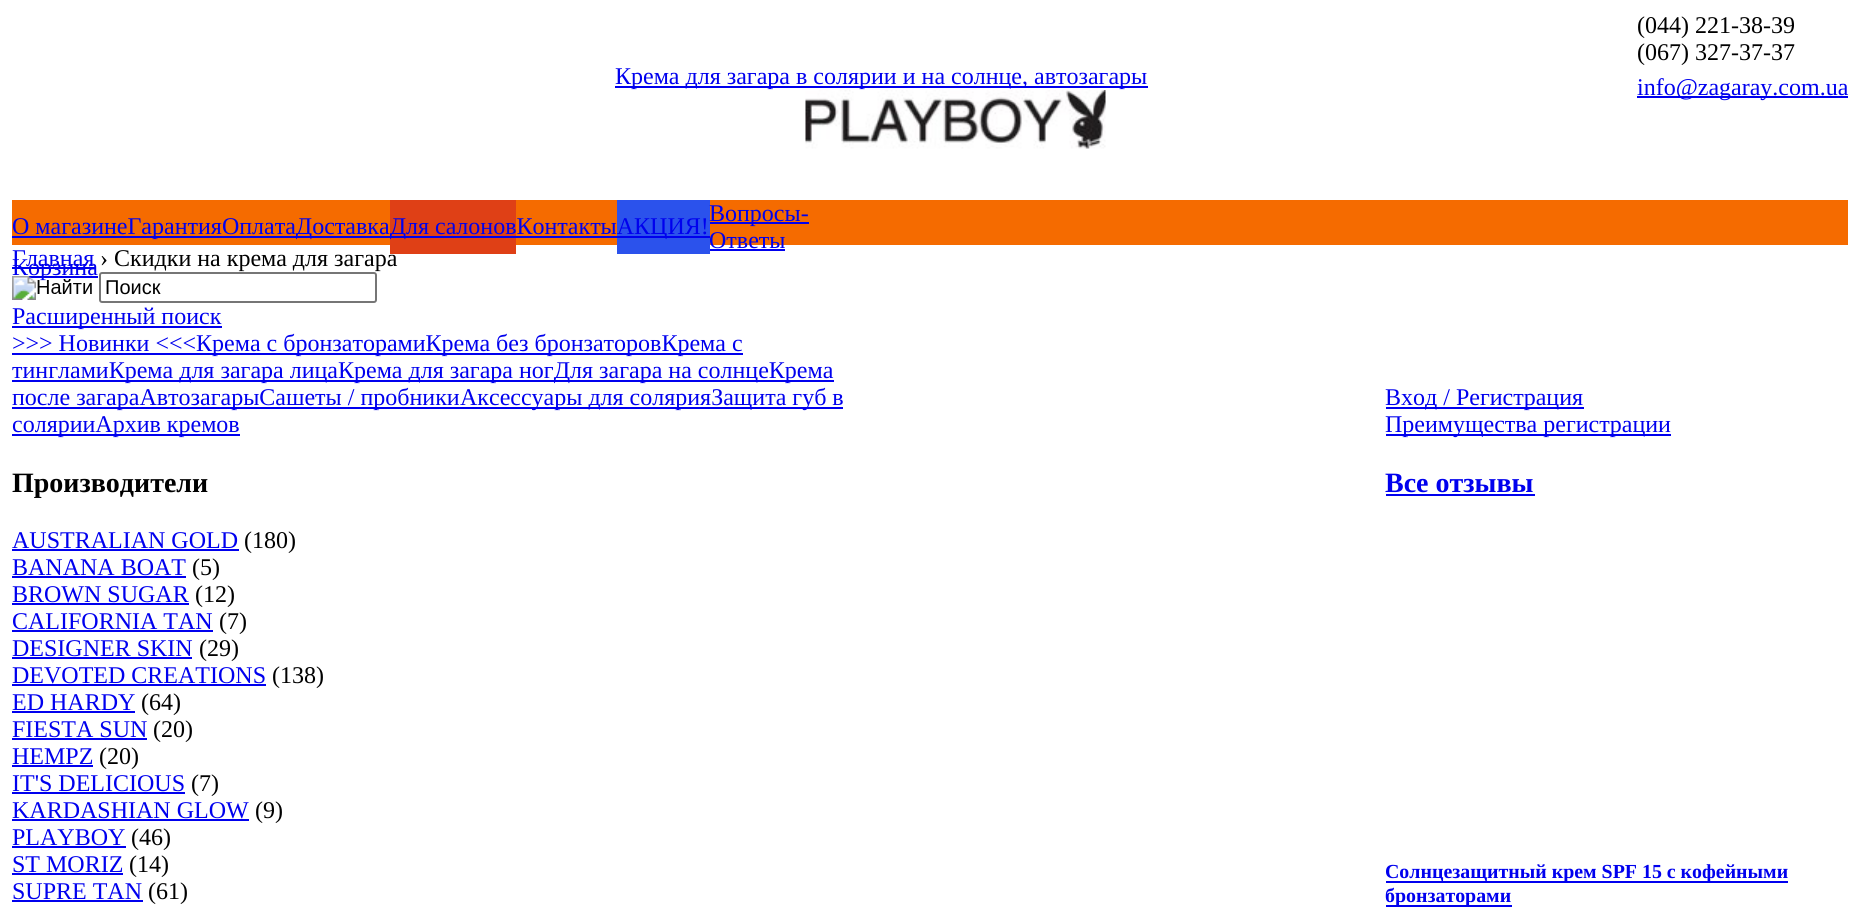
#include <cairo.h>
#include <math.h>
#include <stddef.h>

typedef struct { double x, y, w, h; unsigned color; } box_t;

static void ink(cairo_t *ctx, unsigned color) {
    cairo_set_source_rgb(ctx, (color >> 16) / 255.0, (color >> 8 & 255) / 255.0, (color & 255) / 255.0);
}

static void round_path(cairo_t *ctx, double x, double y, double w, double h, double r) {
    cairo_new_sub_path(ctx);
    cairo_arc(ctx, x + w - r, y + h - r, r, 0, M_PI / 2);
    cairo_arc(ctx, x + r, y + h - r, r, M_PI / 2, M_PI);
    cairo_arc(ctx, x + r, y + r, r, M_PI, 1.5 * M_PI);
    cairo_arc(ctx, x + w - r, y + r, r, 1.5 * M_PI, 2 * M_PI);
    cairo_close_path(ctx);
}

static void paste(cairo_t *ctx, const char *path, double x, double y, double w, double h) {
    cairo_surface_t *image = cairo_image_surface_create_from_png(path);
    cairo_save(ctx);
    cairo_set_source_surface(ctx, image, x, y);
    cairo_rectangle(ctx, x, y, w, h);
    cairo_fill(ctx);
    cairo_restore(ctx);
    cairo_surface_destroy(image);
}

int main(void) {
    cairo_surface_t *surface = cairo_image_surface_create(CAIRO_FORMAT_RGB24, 1860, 907);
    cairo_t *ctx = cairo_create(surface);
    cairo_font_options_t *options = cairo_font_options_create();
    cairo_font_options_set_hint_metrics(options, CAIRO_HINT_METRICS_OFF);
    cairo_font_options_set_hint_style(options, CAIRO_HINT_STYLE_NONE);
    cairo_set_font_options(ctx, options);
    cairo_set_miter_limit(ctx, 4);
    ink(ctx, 0xFFFFFF);
    cairo_paint(ctx);
    ink(ctx, 0x0000EE);
    cairo_rectangle(ctx, 615, 86, 533, 2);
    cairo_fill(ctx);
    cairo_select_font_face(ctx, "Liberation Serif", CAIRO_FONT_SLANT_NORMAL, CAIRO_FONT_WEIGHT_NORMAL);
    cairo_set_font_size(ctx, 24);
    cairo_move_to(ctx, 615, 84);
    cairo_show_text(ctx, "Крема для загара в солярии и на солнце, автозагары");
    paste(ctx, "media/1.png", 805, 90, 301, 59);
    ink(ctx, 0x000000);
    cairo_move_to(ctx, 1637, 33);
    cairo_show_text(ctx, "(044) 221-38-39");
    cairo_move_to(ctx, 1637, 60);
    cairo_show_text(ctx, "(067) 327-37-37");
    ink(ctx, 0x0000EE);
    cairo_rectangle(ctx, 1637, 96, 211, 2);
    cairo_fill(ctx);
    cairo_move_to(ctx, 1637, 95);
    cairo_show_text(ctx, "info@zagaray.com.ua");
    {
        static const box_t items[] = {
            {12, 200, 1836, 45, 0xF56B00},
            {390, 200, 126, 54, 0xDF4016},
            {617, 200, 93, 54, 0x2B52EC},
            {710, 222, 99, 2, 0x0000EE},
        };
        for (size_t i = 0; i < sizeof items / sizeof *items; i++) {
            ink(ctx, items[i].color);
            cairo_rectangle(ctx, items[i].x, items[i].y, items[i].w, items[i].h);
            cairo_fill(ctx);
        }
    }
    cairo_move_to(ctx, 709, 221);
    cairo_show_text(ctx, "Вопросы-");
    cairo_rectangle(ctx, 12, 236, 698, 2);
    cairo_fill(ctx);
    cairo_move_to(ctx, 709, 248);
    cairo_show_text(ctx, "Ответы");
    cairo_rectangle(ctx, 710, 249, 75, 2);
    cairo_fill(ctx);
    cairo_move_to(ctx, 12, 234);
    cairo_show_text(ctx, "О магазинеГарантияОплатаДоставкаДля салоновКонтактыАКЦИЯ!");
    cairo_rectangle(ctx, 28, 276, 70, 2);
    cairo_fill(ctx);
    cairo_move_to(ctx, 12, 275);
    cairo_show_text(ctx, "Корзина");
    cairo_move_to(ctx, 12, 266);
    cairo_show_text(ctx, "Главная");
    cairo_rectangle(ctx, 12, 267, 83, 2);
    cairo_fill(ctx);
    ink(ctx, 0x000000);
    cairo_move_to(ctx, 100, 266);
    cairo_show_text(ctx, "› Скидки на крема для загара");
    paste(ctx, "media/2.png", 12, 276, 80, 24);
    round_path(ctx, 100, 273, 276, 29, 2);
    ink(ctx, 0x767676);
    cairo_stroke(ctx);
    cairo_select_font_face(ctx, "Liberation Sans", CAIRO_FONT_SLANT_NORMAL, CAIRO_FONT_WEIGHT_NORMAL);
    cairo_set_font_size(ctx, 20);
    ink(ctx, 0x000000);
    cairo_move_to(ctx, 105, 294);
    cairo_show_text(ctx, "Поиск");
    ink(ctx, 0x0000EE);
    cairo_rectangle(ctx, 12, 326, 210, 2);
    cairo_fill(ctx);
    cairo_select_font_face(ctx, "Liberation Serif", CAIRO_FONT_SLANT_NORMAL, CAIRO_FONT_WEIGHT_NORMAL);
    cairo_set_font_size(ctx, 24);
    cairo_move_to(ctx, 12, 324);
    cairo_show_text(ctx, "Расширенный поиск");
    cairo_rectangle(ctx, 12, 353, 731, 2);
    cairo_fill(ctx);
    cairo_move_to(ctx, 12, 351);
    cairo_show_text(ctx, ">>> Новинки <<<Крема с бронзаторамиКрема без бронзаторовКрема с");
    cairo_rectangle(ctx, 12, 380, 822, 2);
    cairo_fill(ctx);
    cairo_move_to(ctx, 12, 378);
    cairo_show_text(ctx, "тингламиКрема для загара лицаКрема для загара ногДля загара на солнцеКрема");
    cairo_rectangle(ctx, 12, 407, 447, 2);
    cairo_fill(ctx);
    cairo_move_to(ctx, 12, 405);
    cairo_show_text(ctx, "после загараАвтозагарыСашеты / пробники");
    cairo_rectangle(ctx, 459, 407, 384, 2);
    cairo_fill(ctx);
    cairo_move_to(ctx, 460, 405);
    cairo_show_text(ctx, "Аксессуары для солярияЗащита губ в");
    cairo_rectangle(ctx, 12, 434, 228, 2);
    cairo_fill(ctx);
    cairo_move_to(ctx, 12, 432);
    cairo_show_text(ctx, "солярииАрхив кремов");
    cairo_select_font_face(ctx, "Liberation Serif", CAIRO_FONT_SLANT_NORMAL, CAIRO_FONT_WEIGHT_BOLD);
    cairo_set_font_size(ctx, 28);
    ink(ctx, 0x000000);
    cairo_move_to(ctx, 12, 492);
    cairo_show_text(ctx, "Производители");
    cairo_select_font_face(ctx, "Liberation Serif", CAIRO_FONT_SLANT_NORMAL, CAIRO_FONT_WEIGHT_NORMAL);
    cairo_set_font_size(ctx, 24);
    ink(ctx, 0x0000EE);
    cairo_move_to(ctx, 12, 548);
    cairo_show_text(ctx, "AUSTRALIAN GOLD");
    cairo_rectangle(ctx, 12, 549, 227, 2);
    cairo_fill(ctx);
    ink(ctx, 0x000000);
    cairo_move_to(ctx, 244, 548);
    cairo_show_text(ctx, "(180)");
    ink(ctx, 0x0000EE);
    cairo_move_to(ctx, 12, 575);
    cairo_show_text(ctx, "BANANA BOAT");
    cairo_rectangle(ctx, 12, 576, 174, 2);
    cairo_fill(ctx);
    ink(ctx, 0x000000);
    cairo_move_to(ctx, 192, 575);
    cairo_show_text(ctx, "(5)");
    ink(ctx, 0x0000EE);
    cairo_move_to(ctx, 12, 602);
    cairo_show_text(ctx, "BROWN SUGAR");
    cairo_rectangle(ctx, 12, 603, 177, 2);
    cairo_fill(ctx);
    ink(ctx, 0x000000);
    cairo_move_to(ctx, 195, 602);
    cairo_show_text(ctx, "(12)");
    ink(ctx, 0x0000EE);
    cairo_move_to(ctx, 12, 629);
    cairo_show_text(ctx, "CALIFORNIA TAN");
    cairo_rectangle(ctx, 12, 630, 201, 2);
    cairo_fill(ctx);
    ink(ctx, 0x000000);
    cairo_move_to(ctx, 219, 629);
    cairo_show_text(ctx, "(7)");
    ink(ctx, 0x0000EE);
    cairo_move_to(ctx, 12, 656);
    cairo_show_text(ctx, "DESIGNER SKIN");
    cairo_rectangle(ctx, 12, 657, 180, 2);
    cairo_fill(ctx);
    ink(ctx, 0x000000);
    cairo_move_to(ctx, 199, 656);
    cairo_show_text(ctx, "(29)");
    ink(ctx, 0x0000EE);
    cairo_move_to(ctx, 12, 683);
    cairo_show_text(ctx, "DEVOTED CREATIONS");
    cairo_rectangle(ctx, 12, 684, 254, 2);
    cairo_fill(ctx);
    ink(ctx, 0x000000);
    cairo_move_to(ctx, 272, 683);
    cairo_show_text(ctx, "(138)");
    ink(ctx, 0x0000EE);
    cairo_move_to(ctx, 12, 710);
    cairo_show_text(ctx, "ED HARDY");
    cairo_rectangle(ctx, 12, 711, 123, 2);
    cairo_fill(ctx);
    ink(ctx, 0x000000);
    cairo_move_to(ctx, 141, 710);
    cairo_show_text(ctx, "(64)");
    ink(ctx, 0x0000EE);
    cairo_move_to(ctx, 12, 737);
    cairo_show_text(ctx, "FIESTA SUN");
    cairo_rectangle(ctx, 12, 738, 135, 2);
    cairo_fill(ctx);
    ink(ctx, 0x000000);
    cairo_move_to(ctx, 153, 737);
    cairo_show_text(ctx, "(20)");
    ink(ctx, 0x0000EE);
    cairo_move_to(ctx, 12, 764);
    cairo_show_text(ctx, "HEMPZ");
    cairo_rectangle(ctx, 12, 765, 81, 2);
    cairo_fill(ctx);
    ink(ctx, 0x000000);
    cairo_move_to(ctx, 99, 764);
    cairo_show_text(ctx, "(20)");
    ink(ctx, 0x0000EE);
    cairo_move_to(ctx, 12, 791);
    cairo_show_text(ctx, "IT'S DELICIOUS");
    cairo_rectangle(ctx, 12, 792, 173, 2);
    cairo_fill(ctx);
    ink(ctx, 0x000000);
    cairo_move_to(ctx, 191, 791);
    cairo_show_text(ctx, "(7)");
    ink(ctx, 0x0000EE);
    cairo_move_to(ctx, 12, 818);
    cairo_show_text(ctx, "KARDASHIAN GLOW");
    cairo_rectangle(ctx, 12, 819, 237, 2);
    cairo_fill(ctx);
    ink(ctx, 0x000000);
    cairo_move_to(ctx, 255, 818);
    cairo_show_text(ctx, "(9)");
    ink(ctx, 0x0000EE);
    cairo_move_to(ctx, 12, 845);
    cairo_show_text(ctx, "PLAYBOY");
    cairo_rectangle(ctx, 12, 846, 114, 2);
    cairo_fill(ctx);
    ink(ctx, 0x000000);
    cairo_move_to(ctx, 131, 845);
    cairo_show_text(ctx, "(46)");
    ink(ctx, 0x0000EE);
    cairo_move_to(ctx, 12, 872);
    cairo_show_text(ctx, "ST MORIZ");
    cairo_rectangle(ctx, 12, 873, 111, 2);
    cairo_fill(ctx);
    ink(ctx, 0x000000);
    cairo_move_to(ctx, 129, 872);
    cairo_show_text(ctx, "(14)");
    ink(ctx, 0x0000EE);
    cairo_move_to(ctx, 12, 899);
    cairo_show_text(ctx, "SUPRE TAN");
    cairo_rectangle(ctx, 12, 900, 131, 2);
    cairo_fill(ctx);
    ink(ctx, 0x000000);
    cairo_move_to(ctx, 148, 899);
    cairo_show_text(ctx, "(61)");
    ink(ctx, 0x0000EE);
    cairo_rectangle(ctx, 1386, 407, 198, 2);
    cairo_fill(ctx);
    cairo_move_to(ctx, 1385, 405);
    cairo_show_text(ctx, "Вход / Регистрация");
    cairo_rectangle(ctx, 1386, 434, 285, 2);
    cairo_fill(ctx);
    cairo_move_to(ctx, 1385, 432);
    cairo_show_text(ctx, "Преимущества регистрации");
    cairo_select_font_face(ctx, "Liberation Serif", CAIRO_FONT_SLANT_NORMAL, CAIRO_FONT_WEIGHT_BOLD);
    cairo_set_font_size(ctx, 28);
    cairo_move_to(ctx, 1385, 492);
    cairo_show_text(ctx, "Все отзывы");
    cairo_rectangle(ctx, 1386, 494, 149, 2);
    cairo_fill(ctx);
    cairo_rectangle(ctx, 1386, 881, 402, 2);
    cairo_fill(ctx);
    cairo_set_font_size(ctx, 19.9);
    cairo_move_to(ctx, 1385, 878);
    cairo_show_text(ctx, "Солнцезащитный крем SPF 15 с кофейными");
    cairo_rectangle(ctx, 1386, 905, 126, 2);
    cairo_fill(ctx);
    cairo_move_to(ctx, 1385, 902);
    cairo_show_text(ctx, "бронзаторами");
    cairo_surface_write_to_png(surface, "image.png");
    cairo_font_options_destroy(options);
    cairo_destroy(ctx);
    cairo_surface_destroy(surface);
    return 0;
}
